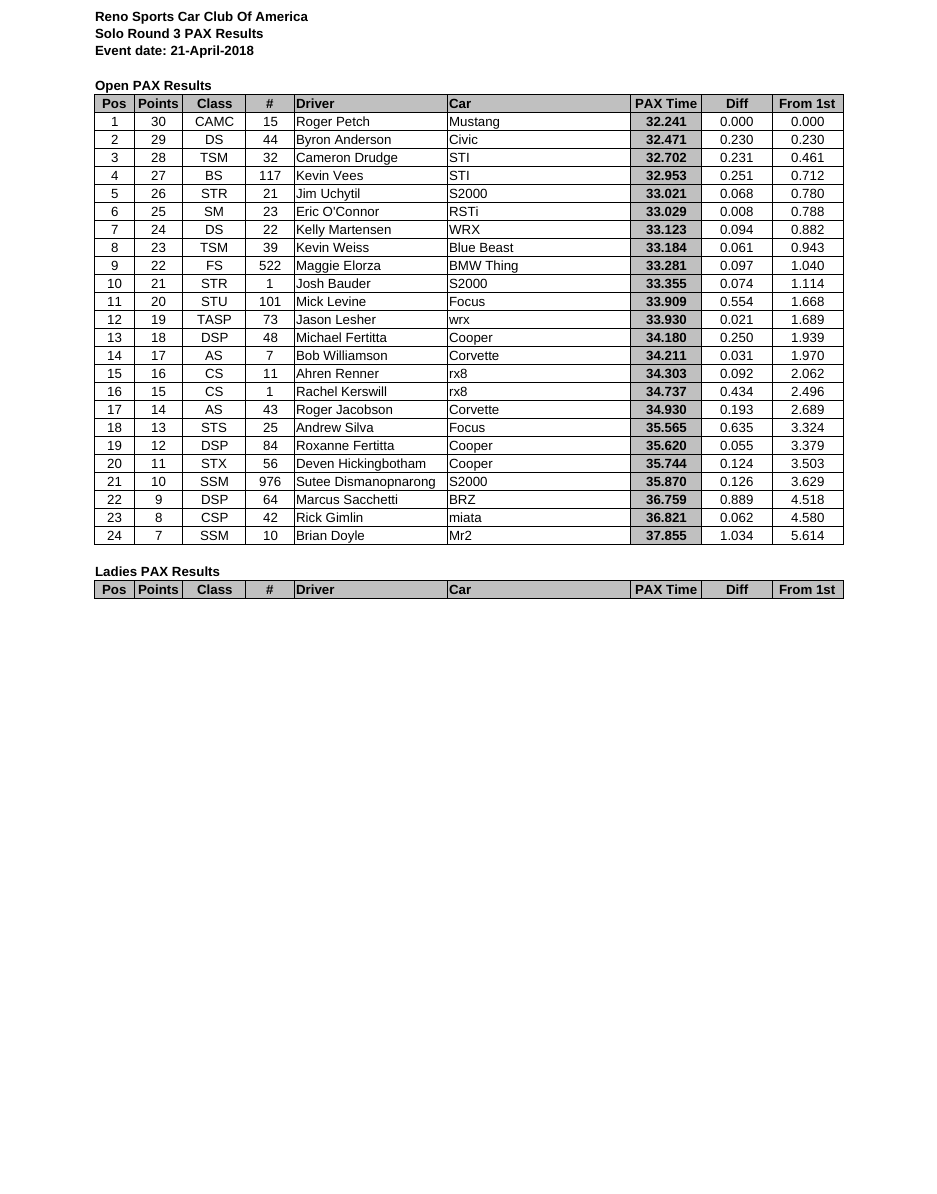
#include <cairo.h>
#include <math.h>
#include <stddef.h>

typedef struct { double x, y; const char *s; } line_t;
typedef struct { double x, y, w, h; unsigned color; } box_t;

static void ink(cairo_t *ctx, unsigned color) {
    cairo_set_source_rgb(ctx, (color >> 16) / 255.0, (color >> 8 & 255) / 255.0, (color & 255) / 255.0);
}

int main(void) {
    cairo_surface_t *surface = cairo_image_surface_create(CAIRO_FORMAT_RGB24, 937, 1194);
    cairo_t *ctx = cairo_create(surface);
    cairo_font_options_t *options = cairo_font_options_create();
    cairo_font_options_set_hint_metrics(options, CAIRO_HINT_METRICS_OFF);
    cairo_font_options_set_hint_style(options, CAIRO_HINT_STYLE_NONE);
    cairo_set_font_options(ctx, options);
    cairo_set_miter_limit(ctx, 4);
    ink(ctx, 0xFFFFFF);
    cairo_paint(ctx);
    cairo_select_font_face(ctx, "Liberation Sans", CAIRO_FONT_SLANT_NORMAL, CAIRO_FONT_WEIGHT_BOLD);
    cairo_set_font_size(ctx, 13.3);
    ink(ctx, 0x000000);
    {
        static const line_t items[] = {
            {95, 21, "Reno Sports Car Club Of America"},
            {95, 38, "Solo Round 3 PAX Results"},
            {95, 55, "Event date: 21-April-2018"},
            {95, 90, "Open PAX Results"},
        };
        for (size_t i = 0; i < sizeof items / sizeof *items; i++) {
            cairo_move_to(ctx, items[i].x, items[i].y);
            cairo_show_text(ctx, items[i].s);
        }
    }
    {
        static const box_t items[] = {
            {95, 95, 39, 17, 0xC0C0C0},
            {772, 94, 72, 1, 0x000000},
            {772, 112, 72, 1, 0x000000},
            {772, 130, 72, 1, 0x000000},
            {772, 148, 72, 1, 0x000000},
            {772, 166, 72, 1, 0x000000},
            {772, 184, 72, 1, 0x000000},
            {772, 202, 72, 1, 0x000000},
            {772, 220, 72, 1, 0x000000},
            {772, 238, 72, 1, 0x000000},
            {772, 256, 72, 1, 0x000000},
            {772, 274, 72, 1, 0x000000},
            {772, 292, 72, 1, 0x000000},
            {772, 310, 72, 1, 0x000000},
            {772, 328, 72, 1, 0x000000},
            {772, 346, 72, 1, 0x000000},
            {772, 364, 72, 1, 0x000000},
            {772, 382, 72, 1, 0x000000},
            {772, 400, 72, 1, 0x000000},
            {772, 418, 72, 1, 0x000000},
            {772, 436, 72, 1, 0x000000},
            {772, 454, 72, 1, 0x000000},
            {772, 472, 72, 1, 0x000000},
            {772, 490, 72, 1, 0x000000},
            {772, 508, 72, 1, 0x000000},
            {772, 526, 72, 1, 0x000000},
            {843, 526, 1, 19, 0x000000},
            {772, 544, 72, 1, 0x000000},
            {772, 526, 1, 19, 0x000000},
            {701, 526, 72, 1, 0x000000},
            {772, 508, 1, 19, 0x000000},
            {701, 508, 72, 1, 0x000000},
            {772, 490, 1, 19, 0x000000},
            {701, 490, 72, 1, 0x000000},
            {772, 472, 1, 19, 0x000000},
            {701, 472, 72, 1, 0x000000},
            {772, 454, 1, 19, 0x000000},
            {701, 454, 72, 1, 0x000000},
            {772, 436, 1, 19, 0x000000},
            {701, 436, 72, 1, 0x000000},
            {772, 418, 1, 19, 0x000000},
            {701, 418, 72, 1, 0x000000},
            {772, 400, 1, 19, 0x000000},
            {701, 400, 72, 1, 0x000000},
            {772, 382, 1, 19, 0x000000},
            {701, 382, 72, 1, 0x000000},
            {772, 364, 1, 19, 0x000000},
            {701, 364, 72, 1, 0x000000},
            {772, 346, 1, 19, 0x000000},
            {701, 346, 72, 1, 0x000000},
            {772, 328, 1, 19, 0x000000},
            {701, 328, 72, 1, 0x000000},
            {772, 310, 1, 19, 0x000000},
            {701, 310, 72, 1, 0x000000},
            {772, 292, 1, 19, 0x000000},
            {701, 292, 72, 1, 0x000000},
            {772, 274, 1, 19, 0x000000},
            {701, 274, 72, 1, 0x000000},
            {772, 256, 1, 19, 0x000000},
            {701, 256, 72, 1, 0x000000},
            {772, 238, 1, 19, 0x000000},
            {701, 238, 72, 1, 0x000000},
            {772, 220, 1, 19, 0x000000},
            {701, 220, 72, 1, 0x000000},
            {772, 202, 1, 19, 0x000000},
            {701, 202, 72, 1, 0x000000},
            {772, 184, 1, 19, 0x000000},
            {701, 184, 72, 1, 0x000000},
            {772, 166, 1, 19, 0x000000},
            {701, 166, 72, 1, 0x000000},
            {772, 148, 1, 19, 0x000000},
            {701, 148, 72, 1, 0x000000},
            {772, 130, 1, 19, 0x000000},
            {701, 130, 72, 1, 0x000000},
            {772, 112, 1, 19, 0x000000},
            {701, 112, 72, 1, 0x000000},
            {772, 94, 1, 19, 0x000000},
            {701, 94, 72, 1, 0x000000},
            {701, 544, 72, 1, 0x000000},
            {701, 526, 1, 19, 0x000000},
            {630, 526, 72, 1, 0x000000},
            {701, 508, 1, 19, 0x000000},
            {630, 508, 72, 1, 0x000000},
            {701, 490, 1, 19, 0x000000},
            {630, 490, 72, 1, 0x000000},
            {701, 472, 1, 19, 0x000000},
            {630, 472, 72, 1, 0x000000},
            {701, 454, 1, 19, 0x000000},
            {630, 454, 72, 1, 0x000000},
            {701, 436, 1, 19, 0x000000},
            {630, 436, 72, 1, 0x000000},
            {701, 418, 1, 19, 0x000000},
            {630, 418, 72, 1, 0x000000},
            {701, 400, 1, 19, 0x000000},
            {630, 400, 72, 1, 0x000000},
            {701, 382, 1, 19, 0x000000},
            {630, 382, 72, 1, 0x000000},
            {701, 364, 1, 19, 0x000000},
            {630, 364, 72, 1, 0x000000},
            {701, 346, 1, 19, 0x000000},
            {630, 346, 72, 1, 0x000000},
            {701, 328, 1, 19, 0x000000},
            {630, 328, 72, 1, 0x000000},
            {701, 310, 1, 19, 0x000000},
            {630, 310, 72, 1, 0x000000},
            {701, 292, 1, 19, 0x000000},
            {630, 292, 72, 1, 0x000000},
            {701, 274, 1, 19, 0x000000},
            {630, 274, 72, 1, 0x000000},
            {701, 256, 1, 19, 0x000000},
            {630, 256, 72, 1, 0x000000},
            {701, 238, 1, 19, 0x000000},
            {630, 238, 72, 1, 0x000000},
            {701, 220, 1, 19, 0x000000},
            {630, 220, 72, 1, 0x000000},
            {701, 202, 1, 19, 0x000000},
            {630, 202, 72, 1, 0x000000},
            {701, 184, 1, 19, 0x000000},
            {630, 184, 72, 1, 0x000000},
            {701, 166, 1, 19, 0x000000},
            {630, 166, 72, 1, 0x000000},
            {701, 148, 1, 19, 0x000000},
            {630, 148, 72, 1, 0x000000},
            {701, 130, 1, 19, 0x000000},
            {630, 130, 72, 1, 0x000000},
            {701, 112, 1, 19, 0x000000},
            {630, 112, 72, 1, 0x000000},
            {701, 94, 1, 19, 0x000000},
            {630, 94, 72, 1, 0x000000},
            {630, 544, 72, 1, 0x000000},
            {630, 526, 1, 19, 0x000000},
            {447, 526, 184, 1, 0x000000},
            {630, 508, 1, 19, 0x000000},
            {447, 508, 184, 1, 0x000000},
            {630, 490, 1, 19, 0x000000},
            {447, 490, 184, 1, 0x000000},
            {630, 472, 1, 19, 0x000000},
            {447, 472, 184, 1, 0x000000},
            {630, 454, 1, 19, 0x000000},
            {447, 454, 184, 1, 0x000000},
            {630, 436, 1, 19, 0x000000},
            {447, 436, 184, 1, 0x000000},
            {630, 418, 1, 19, 0x000000},
            {447, 418, 184, 1, 0x000000},
            {630, 400, 1, 19, 0x000000},
            {447, 400, 184, 1, 0x000000},
            {630, 382, 1, 19, 0x000000},
            {447, 382, 184, 1, 0x000000},
            {630, 364, 1, 19, 0x000000},
            {447, 364, 184, 1, 0x000000},
            {630, 346, 1, 19, 0x000000},
            {447, 346, 184, 1, 0x000000},
            {630, 328, 1, 19, 0x000000},
            {447, 328, 184, 1, 0x000000},
            {630, 310, 1, 19, 0x000000},
            {447, 310, 184, 1, 0x000000},
            {630, 292, 1, 19, 0x000000},
            {447, 292, 184, 1, 0x000000},
            {630, 274, 1, 19, 0x000000},
            {447, 274, 184, 1, 0x000000},
            {630, 256, 1, 19, 0x000000},
            {447, 256, 184, 1, 0x000000},
            {630, 238, 1, 19, 0x000000},
            {447, 238, 184, 1, 0x000000},
            {630, 220, 1, 19, 0x000000},
            {447, 220, 184, 1, 0x000000},
            {630, 202, 1, 19, 0x000000},
            {447, 202, 184, 1, 0x000000},
            {630, 184, 1, 19, 0x000000},
            {447, 184, 184, 1, 0x000000},
            {630, 166, 1, 19, 0x000000},
            {447, 166, 184, 1, 0x000000},
            {630, 148, 1, 19, 0x000000},
            {447, 148, 184, 1, 0x000000},
            {630, 130, 1, 19, 0x000000},
            {447, 130, 184, 1, 0x000000},
            {630, 112, 1, 19, 0x000000},
            {447, 112, 184, 1, 0x000000},
            {630, 94, 1, 19, 0x000000},
            {447, 94, 184, 1, 0x000000},
            {447, 544, 184, 1, 0x000000},
            {447, 526, 1, 19, 0x000000},
            {294, 526, 154, 1, 0x000000},
            {447, 508, 1, 19, 0x000000},
            {294, 508, 154, 1, 0x000000},
            {447, 490, 1, 19, 0x000000},
            {294, 490, 154, 1, 0x000000},
            {447, 472, 1, 19, 0x000000},
            {294, 472, 154, 1, 0x000000},
            {447, 454, 1, 19, 0x000000},
            {294, 454, 154, 1, 0x000000},
            {447, 436, 1, 19, 0x000000},
            {294, 436, 154, 1, 0x000000},
            {447, 418, 1, 19, 0x000000},
            {294, 418, 154, 1, 0x000000},
            {447, 400, 1, 19, 0x000000},
            {294, 400, 154, 1, 0x000000},
            {447, 382, 1, 19, 0x000000},
            {294, 382, 154, 1, 0x000000},
            {447, 364, 1, 19, 0x000000},
            {294, 364, 154, 1, 0x000000},
            {447, 346, 1, 19, 0x000000},
            {294, 346, 154, 1, 0x000000},
            {447, 328, 1, 19, 0x000000},
            {294, 328, 154, 1, 0x000000},
            {447, 310, 1, 19, 0x000000},
            {294, 310, 154, 1, 0x000000},
            {447, 292, 1, 19, 0x000000},
            {294, 292, 154, 1, 0x000000},
            {447, 274, 1, 19, 0x000000},
            {294, 274, 154, 1, 0x000000},
            {447, 256, 1, 19, 0x000000},
            {294, 256, 154, 1, 0x000000},
            {447, 238, 1, 19, 0x000000},
            {294, 238, 154, 1, 0x000000},
            {447, 220, 1, 19, 0x000000},
            {294, 220, 154, 1, 0x000000},
            {447, 202, 1, 19, 0x000000},
            {294, 202, 154, 1, 0x000000},
            {447, 184, 1, 19, 0x000000},
            {294, 184, 154, 1, 0x000000},
            {447, 166, 1, 19, 0x000000},
            {294, 166, 154, 1, 0x000000},
            {447, 148, 1, 19, 0x000000},
            {294, 148, 154, 1, 0x000000},
            {447, 130, 1, 19, 0x000000},
            {294, 130, 154, 1, 0x000000},
            {447, 112, 1, 19, 0x000000},
            {294, 112, 154, 1, 0x000000},
            {447, 94, 1, 19, 0x000000},
            {294, 94, 154, 1, 0x000000},
            {294, 544, 154, 1, 0x000000},
            {294, 526, 1, 19, 0x000000},
            {245, 526, 50, 1, 0x000000},
            {294, 508, 1, 19, 0x000000},
            {245, 508, 50, 1, 0x000000},
            {294, 490, 1, 19, 0x000000},
            {245, 490, 50, 1, 0x000000},
            {294, 472, 1, 19, 0x000000},
            {245, 472, 50, 1, 0x000000},
            {294, 454, 1, 19, 0x000000},
            {245, 454, 50, 1, 0x000000},
            {294, 436, 1, 19, 0x000000},
            {245, 436, 50, 1, 0x000000},
            {294, 418, 1, 19, 0x000000},
            {245, 418, 50, 1, 0x000000},
            {294, 400, 1, 19, 0x000000},
            {245, 400, 50, 1, 0x000000},
            {294, 382, 1, 19, 0x000000},
            {245, 382, 50, 1, 0x000000},
            {294, 364, 1, 19, 0x000000},
            {245, 364, 50, 1, 0x000000},
            {294, 346, 1, 19, 0x000000},
            {245, 346, 50, 1, 0x000000},
            {294, 328, 1, 19, 0x000000},
            {245, 328, 50, 1, 0x000000},
            {294, 310, 1, 19, 0x000000},
            {245, 310, 50, 1, 0x000000},
            {294, 292, 1, 19, 0x000000},
            {245, 292, 50, 1, 0x000000},
            {294, 274, 1, 19, 0x000000},
            {245, 274, 50, 1, 0x000000},
            {294, 256, 1, 19, 0x000000},
            {245, 256, 50, 1, 0x000000},
            {294, 238, 1, 19, 0x000000},
            {245, 238, 50, 1, 0x000000},
            {294, 220, 1, 19, 0x000000},
            {245, 220, 50, 1, 0x000000},
            {294, 202, 1, 19, 0x000000},
            {245, 202, 50, 1, 0x000000},
            {294, 184, 1, 19, 0x000000},
            {245, 184, 50, 1, 0x000000},
            {294, 166, 1, 19, 0x000000},
            {245, 166, 50, 1, 0x000000},
            {294, 148, 1, 19, 0x000000},
            {245, 148, 50, 1, 0x000000},
            {294, 130, 1, 19, 0x000000},
            {245, 130, 50, 1, 0x000000},
            {294, 112, 1, 19, 0x000000},
            {245, 112, 50, 1, 0x000000},
            {294, 94, 1, 19, 0x000000},
            {245, 94, 50, 1, 0x000000},
            {245, 544, 50, 1, 0x000000},
            {245, 526, 1, 19, 0x000000},
            {182, 526, 64, 1, 0x000000},
            {245, 508, 1, 19, 0x000000},
            {182, 508, 64, 1, 0x000000},
            {245, 490, 1, 19, 0x000000},
            {182, 490, 64, 1, 0x000000},
            {245, 472, 1, 19, 0x000000},
            {182, 472, 64, 1, 0x000000},
            {245, 454, 1, 19, 0x000000},
            {182, 454, 64, 1, 0x000000},
            {245, 436, 1, 19, 0x000000},
            {182, 436, 64, 1, 0x000000},
            {245, 418, 1, 19, 0x000000},
            {182, 418, 64, 1, 0x000000},
            {245, 400, 1, 19, 0x000000},
            {182, 400, 64, 1, 0x000000},
            {245, 382, 1, 19, 0x000000},
            {182, 382, 64, 1, 0x000000},
            {245, 364, 1, 19, 0x000000},
            {182, 364, 64, 1, 0x000000},
            {245, 346, 1, 19, 0x000000},
            {182, 346, 64, 1, 0x000000},
            {245, 328, 1, 19, 0x000000},
            {182, 328, 64, 1, 0x000000},
            {245, 310, 1, 19, 0x000000},
            {182, 310, 64, 1, 0x000000},
            {245, 292, 1, 19, 0x000000},
            {182, 292, 64, 1, 0x000000},
            {245, 274, 1, 19, 0x000000},
            {182, 274, 64, 1, 0x000000},
            {245, 256, 1, 19, 0x000000},
            {182, 256, 64, 1, 0x000000},
            {245, 238, 1, 19, 0x000000},
            {182, 238, 64, 1, 0x000000},
            {245, 220, 1, 19, 0x000000},
            {182, 220, 64, 1, 0x000000},
            {245, 202, 1, 19, 0x000000},
            {182, 202, 64, 1, 0x000000},
            {245, 184, 1, 19, 0x000000},
            {182, 184, 64, 1, 0x000000},
            {245, 166, 1, 19, 0x000000},
            {182, 166, 64, 1, 0x000000},
            {245, 148, 1, 19, 0x000000},
            {182, 148, 64, 1, 0x000000},
            {245, 130, 1, 19, 0x000000},
            {182, 130, 64, 1, 0x000000},
            {245, 112, 1, 19, 0x000000},
            {182, 112, 64, 1, 0x000000},
            {245, 94, 1, 19, 0x000000},
            {182, 94, 64, 1, 0x000000},
            {182, 544, 64, 1, 0x000000},
            {182, 526, 1, 19, 0x000000},
            {134, 526, 49, 1, 0x000000},
            {182, 508, 1, 19, 0x000000},
            {134, 508, 49, 1, 0x000000},
            {182, 490, 1, 19, 0x000000},
            {134, 490, 49, 1, 0x000000},
            {182, 472, 1, 19, 0x000000},
            {134, 472, 49, 1, 0x000000},
            {182, 454, 1, 19, 0x000000},
            {134, 454, 49, 1, 0x000000},
            {182, 436, 1, 19, 0x000000},
            {134, 436, 49, 1, 0x000000},
            {182, 418, 1, 19, 0x000000},
            {134, 418, 49, 1, 0x000000},
            {182, 400, 1, 19, 0x000000},
            {134, 400, 49, 1, 0x000000},
            {182, 382, 1, 19, 0x000000},
            {134, 382, 49, 1, 0x000000},
            {182, 364, 1, 19, 0x000000},
            {134, 364, 49, 1, 0x000000},
            {182, 346, 1, 19, 0x000000},
            {134, 346, 49, 1, 0x000000},
            {182, 328, 1, 19, 0x000000},
            {134, 328, 49, 1, 0x000000},
            {182, 310, 1, 19, 0x000000},
            {134, 310, 49, 1, 0x000000},
            {182, 292, 1, 19, 0x000000},
            {134, 292, 49, 1, 0x000000},
            {182, 274, 1, 19, 0x000000},
            {134, 274, 49, 1, 0x000000},
            {182, 256, 1, 19, 0x000000},
            {134, 256, 49, 1, 0x000000},
            {182, 238, 1, 19, 0x000000},
            {134, 238, 49, 1, 0x000000},
            {182, 220, 1, 19, 0x000000},
            {134, 220, 49, 1, 0x000000},
            {182, 202, 1, 19, 0x000000},
            {134, 202, 49, 1, 0x000000},
            {182, 184, 1, 19, 0x000000},
            {134, 184, 49, 1, 0x000000},
            {182, 166, 1, 19, 0x000000},
            {134, 166, 49, 1, 0x000000},
            {182, 148, 1, 19, 0x000000},
            {134, 148, 49, 1, 0x000000},
            {182, 130, 1, 19, 0x000000},
            {134, 130, 49, 1, 0x000000},
            {182, 112, 1, 19, 0x000000},
            {134, 112, 49, 1, 0x000000},
            {182, 94, 1, 19, 0x000000},
            {134, 94, 49, 1, 0x000000},
            {134, 544, 49, 1, 0x000000},
            {134, 526, 1, 19, 0x000000},
            {94, 526, 41, 1, 0x000000},
            {134, 508, 1, 19, 0x000000},
            {94, 508, 41, 1, 0x000000},
            {134, 490, 1, 19, 0x000000},
            {94, 490, 41, 1, 0x000000},
            {134, 472, 1, 19, 0x000000},
            {94, 472, 41, 1, 0x000000},
            {134, 454, 1, 19, 0x000000},
            {94, 454, 41, 1, 0x000000},
            {134, 436, 1, 19, 0x000000},
            {94, 436, 41, 1, 0x000000},
            {134, 418, 1, 19, 0x000000},
            {94, 418, 41, 1, 0x000000},
            {134, 400, 1, 19, 0x000000},
            {94, 400, 41, 1, 0x000000},
            {134, 382, 1, 19, 0x000000},
            {94, 382, 41, 1, 0x000000},
            {134, 364, 1, 19, 0x000000},
            {94, 364, 41, 1, 0x000000},
            {134, 346, 1, 19, 0x000000},
            {94, 346, 41, 1, 0x000000},
            {134, 328, 1, 19, 0x000000},
            {94, 328, 41, 1, 0x000000},
            {134, 310, 1, 19, 0x000000},
            {94, 310, 41, 1, 0x000000},
            {134, 292, 1, 19, 0x000000},
            {94, 292, 41, 1, 0x000000},
            {134, 274, 1, 19, 0x000000},
            {94, 274, 41, 1, 0x000000},
            {134, 256, 1, 19, 0x000000},
            {94, 256, 41, 1, 0x000000},
            {134, 238, 1, 19, 0x000000},
            {94, 238, 41, 1, 0x000000},
            {134, 220, 1, 19, 0x000000},
            {94, 220, 41, 1, 0x000000},
            {134, 202, 1, 19, 0x000000},
            {94, 202, 41, 1, 0x000000},
            {134, 184, 1, 19, 0x000000},
            {94, 184, 41, 1, 0x000000},
            {134, 166, 1, 19, 0x000000},
            {94, 166, 41, 1, 0x000000},
            {134, 148, 1, 19, 0x000000},
            {94, 148, 41, 1, 0x000000},
            {134, 130, 1, 19, 0x000000},
            {94, 130, 41, 1, 0x000000},
            {134, 112, 1, 19, 0x000000},
            {94, 112, 41, 1, 0x000000},
            {134, 94, 1, 19, 0x000000},
            {94, 94, 41, 1, 0x000000},
            {94, 544, 41, 1, 0x000000},
            {94, 526, 1, 19, 0x000000},
            {94, 508, 1, 19, 0x000000},
            {94, 490, 1, 19, 0x000000},
            {94, 472, 1, 19, 0x000000},
            {94, 454, 1, 19, 0x000000},
            {94, 436, 1, 19, 0x000000},
            {94, 418, 1, 19, 0x000000},
            {94, 400, 1, 19, 0x000000},
            {94, 382, 1, 19, 0x000000},
            {94, 364, 1, 19, 0x000000},
            {94, 346, 1, 19, 0x000000},
            {94, 328, 1, 19, 0x000000},
            {94, 310, 1, 19, 0x000000},
            {94, 292, 1, 19, 0x000000},
            {94, 274, 1, 19, 0x000000},
            {94, 256, 1, 19, 0x000000},
            {94, 238, 1, 19, 0x000000},
            {94, 220, 1, 19, 0x000000},
            {94, 202, 1, 19, 0x000000},
            {94, 184, 1, 19, 0x000000},
            {94, 166, 1, 19, 0x000000},
            {94, 148, 1, 19, 0x000000},
            {94, 130, 1, 19, 0x000000},
            {94, 112, 1, 19, 0x000000},
            {94, 94, 1, 19, 0x000000},
        };
        for (size_t i = 0; i < sizeof items / sizeof *items; i++) {
            ink(ctx, items[i].color);
            cairo_rectangle(ctx, items[i].x, items[i].y, items[i].w, items[i].h);
            cairo_fill(ctx);
        }
    }
    cairo_move_to(ctx, 102, 108);
    cairo_show_text(ctx, "Pos");
    ink(ctx, 0xC0C0C0);
    cairo_rectangle(ctx, 135, 95, 47, 17);
    cairo_fill(ctx);
    ink(ctx, 0x000000);
    cairo_move_to(ctx, 138, 108);
    cairo_show_text(ctx, "Points");
    ink(ctx, 0xC0C0C0);
    cairo_rectangle(ctx, 183, 95, 62, 17);
    cairo_fill(ctx);
    ink(ctx, 0x000000);
    cairo_move_to(ctx, 197, 108);
    cairo_show_text(ctx, "Class");
    ink(ctx, 0xC0C0C0);
    cairo_rectangle(ctx, 246, 95, 48, 17);
    cairo_fill(ctx);
    ink(ctx, 0x000000);
    cairo_move_to(ctx, 266, 108);
    cairo_show_text(ctx, "#");
    ink(ctx, 0xC0C0C0);
    cairo_rectangle(ctx, 295, 95, 152, 17);
    cairo_fill(ctx);
    ink(ctx, 0x000000);
    cairo_move_to(ctx, 296, 108);
    cairo_show_text(ctx, "Driver");
    ink(ctx, 0xC0C0C0);
    cairo_rectangle(ctx, 448, 95, 182, 17);
    cairo_fill(ctx);
    ink(ctx, 0x000000);
    cairo_move_to(ctx, 449, 108);
    cairo_show_text(ctx, "Car");
    ink(ctx, 0xC0C0C0);
    cairo_rectangle(ctx, 631, 95, 70, 17);
    cairo_fill(ctx);
    ink(ctx, 0x000000);
    cairo_move_to(ctx, 635, 108);
    cairo_show_text(ctx, "PAX Time");
    ink(ctx, 0xC0C0C0);
    cairo_rectangle(ctx, 702, 95, 70, 17);
    cairo_fill(ctx);
    ink(ctx, 0x000000);
    cairo_move_to(ctx, 726, 108);
    cairo_show_text(ctx, "Diff");
    {
        static const box_t items[] = {
            {773, 95, 70, 17, 0xC0C0C0},
            {843, 508, 1, 19, 0x000000},
            {843, 490, 1, 19, 0x000000},
            {843, 472, 1, 19, 0x000000},
            {843, 454, 1, 19, 0x000000},
            {843, 436, 1, 19, 0x000000},
            {843, 418, 1, 19, 0x000000},
            {843, 400, 1, 19, 0x000000},
            {843, 382, 1, 19, 0x000000},
            {843, 364, 1, 19, 0x000000},
            {843, 346, 1, 19, 0x000000},
            {843, 328, 1, 19, 0x000000},
            {843, 310, 1, 19, 0x000000},
            {843, 292, 1, 19, 0x000000},
            {843, 274, 1, 19, 0x000000},
            {843, 256, 1, 19, 0x000000},
            {843, 238, 1, 19, 0x000000},
            {843, 220, 1, 19, 0x000000},
            {843, 202, 1, 19, 0x000000},
            {843, 184, 1, 19, 0x000000},
            {843, 166, 1, 19, 0x000000},
            {843, 148, 1, 19, 0x000000},
            {843, 130, 1, 19, 0x000000},
            {843, 112, 1, 19, 0x000000},
            {843, 94, 1, 19, 0x000000},
        };
        for (size_t i = 0; i < sizeof items / sizeof *items; i++) {
            ink(ctx, items[i].color);
            cairo_rectangle(ctx, items[i].x, items[i].y, items[i].w, items[i].h);
            cairo_fill(ctx);
        }
    }
    cairo_move_to(ctx, 779, 108);
    cairo_show_text(ctx, "From 1st");
    cairo_select_font_face(ctx, "Liberation Sans", CAIRO_FONT_SLANT_NORMAL, CAIRO_FONT_WEIGHT_NORMAL);
    {
        static const line_t items[] = {
            {111, 126, "1"},
            {151, 126, "30"},
            {195, 126, "CAMC"},
            {263, 126, "15"},
            {296, 126, "Roger Petch"},
            {449, 126, "Mustang"},
        };
        for (size_t i = 0; i < sizeof items / sizeof *items; i++) {
            cairo_move_to(ctx, items[i].x, items[i].y);
            cairo_show_text(ctx, items[i].s);
        }
    }
    ink(ctx, 0xC0C0C0);
    cairo_rectangle(ctx, 631, 113, 70, 17);
    cairo_fill(ctx);
    cairo_select_font_face(ctx, "Liberation Sans", CAIRO_FONT_SLANT_NORMAL, CAIRO_FONT_WEIGHT_BOLD);
    ink(ctx, 0x000000);
    cairo_move_to(ctx, 646, 126);
    cairo_show_text(ctx, "32.241");
    cairo_select_font_face(ctx, "Liberation Sans", CAIRO_FONT_SLANT_NORMAL, CAIRO_FONT_WEIGHT_NORMAL);
    {
        static const line_t items[] = {
            {720, 126, "0.000"},
            {791, 126, "0.000"},
            {111, 144, "2"},
            {151, 144, "29"},
            {205, 144, "DS"},
            {263, 144, "44"},
            {296, 144, "Byron Anderson"},
            {449, 144, "Civic"},
        };
        for (size_t i = 0; i < sizeof items / sizeof *items; i++) {
            cairo_move_to(ctx, items[i].x, items[i].y);
            cairo_show_text(ctx, items[i].s);
        }
    }
    ink(ctx, 0xC0C0C0);
    cairo_rectangle(ctx, 631, 131, 70, 17);
    cairo_fill(ctx);
    cairo_select_font_face(ctx, "Liberation Sans", CAIRO_FONT_SLANT_NORMAL, CAIRO_FONT_WEIGHT_BOLD);
    ink(ctx, 0x000000);
    cairo_move_to(ctx, 646, 144);
    cairo_show_text(ctx, "32.471");
    cairo_select_font_face(ctx, "Liberation Sans", CAIRO_FONT_SLANT_NORMAL, CAIRO_FONT_WEIGHT_NORMAL);
    {
        static const line_t items[] = {
            {720, 144, "0.230"},
            {791, 144, "0.230"},
            {111, 162, "3"},
            {151, 162, "28"},
            {200, 162, "TSM"},
            {263, 162, "32"},
            {296, 162, "Cameron Drudge"},
            {449, 162, "STI"},
        };
        for (size_t i = 0; i < sizeof items / sizeof *items; i++) {
            cairo_move_to(ctx, items[i].x, items[i].y);
            cairo_show_text(ctx, items[i].s);
        }
    }
    ink(ctx, 0xC0C0C0);
    cairo_rectangle(ctx, 631, 149, 70, 17);
    cairo_fill(ctx);
    cairo_select_font_face(ctx, "Liberation Sans", CAIRO_FONT_SLANT_NORMAL, CAIRO_FONT_WEIGHT_BOLD);
    ink(ctx, 0x000000);
    cairo_move_to(ctx, 646, 162);
    cairo_show_text(ctx, "32.702");
    cairo_select_font_face(ctx, "Liberation Sans", CAIRO_FONT_SLANT_NORMAL, CAIRO_FONT_WEIGHT_NORMAL);
    {
        static const line_t items[] = {
            {720, 162, "0.231"},
            {791, 162, "0.461"},
            {111, 180, "4"},
            {151, 180, "27"},
            {205, 180, "BS"},
            {259, 180, "117"},
            {296, 180, "Kevin Vees"},
            {449, 180, "STI"},
        };
        for (size_t i = 0; i < sizeof items / sizeof *items; i++) {
            cairo_move_to(ctx, items[i].x, items[i].y);
            cairo_show_text(ctx, items[i].s);
        }
    }
    ink(ctx, 0xC0C0C0);
    cairo_rectangle(ctx, 631, 167, 70, 17);
    cairo_fill(ctx);
    cairo_select_font_face(ctx, "Liberation Sans", CAIRO_FONT_SLANT_NORMAL, CAIRO_FONT_WEIGHT_BOLD);
    ink(ctx, 0x000000);
    cairo_move_to(ctx, 646, 180);
    cairo_show_text(ctx, "32.953");
    cairo_select_font_face(ctx, "Liberation Sans", CAIRO_FONT_SLANT_NORMAL, CAIRO_FONT_WEIGHT_NORMAL);
    {
        static const line_t items[] = {
            {720, 180, "0.251"},
            {791, 180, "0.712"},
            {111, 198, "5"},
            {151, 198, "26"},
            {201, 198, "STR"},
            {263, 198, "21"},
            {296, 198, "Jim Uchytil"},
            {449, 198, "S2000"},
        };
        for (size_t i = 0; i < sizeof items / sizeof *items; i++) {
            cairo_move_to(ctx, items[i].x, items[i].y);
            cairo_show_text(ctx, items[i].s);
        }
    }
    ink(ctx, 0xC0C0C0);
    cairo_rectangle(ctx, 631, 185, 70, 17);
    cairo_fill(ctx);
    cairo_select_font_face(ctx, "Liberation Sans", CAIRO_FONT_SLANT_NORMAL, CAIRO_FONT_WEIGHT_BOLD);
    ink(ctx, 0x000000);
    cairo_move_to(ctx, 646, 198);
    cairo_show_text(ctx, "33.021");
    cairo_select_font_face(ctx, "Liberation Sans", CAIRO_FONT_SLANT_NORMAL, CAIRO_FONT_WEIGHT_NORMAL);
    {
        static const line_t items[] = {
            {720, 198, "0.068"},
            {791, 198, "0.780"},
            {111, 216, "6"},
            {151, 216, "25"},
            {204, 216, "SM"},
            {263, 216, "23"},
            {296, 216, "Eric O'Connor"},
            {449, 216, "RSTi"},
        };
        for (size_t i = 0; i < sizeof items / sizeof *items; i++) {
            cairo_move_to(ctx, items[i].x, items[i].y);
            cairo_show_text(ctx, items[i].s);
        }
    }
    ink(ctx, 0xC0C0C0);
    cairo_rectangle(ctx, 631, 203, 70, 17);
    cairo_fill(ctx);
    cairo_select_font_face(ctx, "Liberation Sans", CAIRO_FONT_SLANT_NORMAL, CAIRO_FONT_WEIGHT_BOLD);
    ink(ctx, 0x000000);
    cairo_move_to(ctx, 646, 216);
    cairo_show_text(ctx, "33.029");
    cairo_select_font_face(ctx, "Liberation Sans", CAIRO_FONT_SLANT_NORMAL, CAIRO_FONT_WEIGHT_NORMAL);
    {
        static const line_t items[] = {
            {720, 216, "0.008"},
            {791, 216, "0.788"},
            {111, 234, "7"},
            {151, 234, "24"},
            {205, 234, "DS"},
            {263, 234, "22"},
            {296, 234, "Kelly Martensen"},
            {449, 234, "WRX"},
        };
        for (size_t i = 0; i < sizeof items / sizeof *items; i++) {
            cairo_move_to(ctx, items[i].x, items[i].y);
            cairo_show_text(ctx, items[i].s);
        }
    }
    ink(ctx, 0xC0C0C0);
    cairo_rectangle(ctx, 631, 221, 70, 17);
    cairo_fill(ctx);
    cairo_select_font_face(ctx, "Liberation Sans", CAIRO_FONT_SLANT_NORMAL, CAIRO_FONT_WEIGHT_BOLD);
    ink(ctx, 0x000000);
    cairo_move_to(ctx, 646, 234);
    cairo_show_text(ctx, "33.123");
    cairo_select_font_face(ctx, "Liberation Sans", CAIRO_FONT_SLANT_NORMAL, CAIRO_FONT_WEIGHT_NORMAL);
    {
        static const line_t items[] = {
            {720, 234, "0.094"},
            {791, 234, "0.882"},
            {111, 252, "8"},
            {151, 252, "23"},
            {200, 252, "TSM"},
            {263, 252, "39"},
            {296, 252, "Kevin Weiss"},
            {449, 252, "Blue Beast"},
        };
        for (size_t i = 0; i < sizeof items / sizeof *items; i++) {
            cairo_move_to(ctx, items[i].x, items[i].y);
            cairo_show_text(ctx, items[i].s);
        }
    }
    ink(ctx, 0xC0C0C0);
    cairo_rectangle(ctx, 631, 239, 70, 17);
    cairo_fill(ctx);
    cairo_select_font_face(ctx, "Liberation Sans", CAIRO_FONT_SLANT_NORMAL, CAIRO_FONT_WEIGHT_BOLD);
    ink(ctx, 0x000000);
    cairo_move_to(ctx, 646, 252);
    cairo_show_text(ctx, "33.184");
    cairo_select_font_face(ctx, "Liberation Sans", CAIRO_FONT_SLANT_NORMAL, CAIRO_FONT_WEIGHT_NORMAL);
    {
        static const line_t items[] = {
            {720, 252, "0.061"},
            {791, 252, "0.943"},
            {111, 270, "9"},
            {151, 270, "22"},
            {206, 270, "FS"},
            {259, 270, "522"},
            {296, 270, "Maggie Elorza"},
            {449, 270, "BMW Thing"},
        };
        for (size_t i = 0; i < sizeof items / sizeof *items; i++) {
            cairo_move_to(ctx, items[i].x, items[i].y);
            cairo_show_text(ctx, items[i].s);
        }
    }
    ink(ctx, 0xC0C0C0);
    cairo_rectangle(ctx, 631, 257, 70, 17);
    cairo_fill(ctx);
    cairo_select_font_face(ctx, "Liberation Sans", CAIRO_FONT_SLANT_NORMAL, CAIRO_FONT_WEIGHT_BOLD);
    ink(ctx, 0x000000);
    cairo_move_to(ctx, 646, 270);
    cairo_show_text(ctx, "33.281");
    cairo_select_font_face(ctx, "Liberation Sans", CAIRO_FONT_SLANT_NORMAL, CAIRO_FONT_WEIGHT_NORMAL);
    {
        static const line_t items[] = {
            {720, 270, "0.097"},
            {791, 270, "1.040"},
            {107, 288, "10"},
            {151, 288, "21"},
            {201, 288, "STR"},
            {266, 288, "1"},
            {296, 288, "Josh Bauder"},
            {449, 288, "S2000"},
        };
        for (size_t i = 0; i < sizeof items / sizeof *items; i++) {
            cairo_move_to(ctx, items[i].x, items[i].y);
            cairo_show_text(ctx, items[i].s);
        }
    }
    ink(ctx, 0xC0C0C0);
    cairo_rectangle(ctx, 631, 275, 70, 17);
    cairo_fill(ctx);
    cairo_select_font_face(ctx, "Liberation Sans", CAIRO_FONT_SLANT_NORMAL, CAIRO_FONT_WEIGHT_BOLD);
    ink(ctx, 0x000000);
    cairo_move_to(ctx, 646, 288);
    cairo_show_text(ctx, "33.355");
    cairo_select_font_face(ctx, "Liberation Sans", CAIRO_FONT_SLANT_NORMAL, CAIRO_FONT_WEIGHT_NORMAL);
    {
        static const line_t items[] = {
            {720, 288, "0.074"},
            {791, 288, "1.114"},
            {107, 306, "11"},
            {151, 306, "20"},
            {201, 306, "STU"},
            {259, 306, "101"},
            {296, 306, "Mick Levine"},
            {449, 306, "Focus"},
        };
        for (size_t i = 0; i < sizeof items / sizeof *items; i++) {
            cairo_move_to(ctx, items[i].x, items[i].y);
            cairo_show_text(ctx, items[i].s);
        }
    }
    ink(ctx, 0xC0C0C0);
    cairo_rectangle(ctx, 631, 293, 70, 17);
    cairo_fill(ctx);
    cairo_select_font_face(ctx, "Liberation Sans", CAIRO_FONT_SLANT_NORMAL, CAIRO_FONT_WEIGHT_BOLD);
    ink(ctx, 0x000000);
    cairo_move_to(ctx, 646, 306);
    cairo_show_text(ctx, "33.909");
    cairo_select_font_face(ctx, "Liberation Sans", CAIRO_FONT_SLANT_NORMAL, CAIRO_FONT_WEIGHT_NORMAL);
    {
        static const line_t items[] = {
            {720, 306, "0.554"},
            {791, 306, "1.668"},
            {107, 324, "12"},
            {151, 324, "19"},
            {197, 324, "TASP"},
            {263, 324, "73"},
            {296, 324, "Jason Lesher"},
            {449, 324, "wrx"},
        };
        for (size_t i = 0; i < sizeof items / sizeof *items; i++) {
            cairo_move_to(ctx, items[i].x, items[i].y);
            cairo_show_text(ctx, items[i].s);
        }
    }
    ink(ctx, 0xC0C0C0);
    cairo_rectangle(ctx, 631, 311, 70, 17);
    cairo_fill(ctx);
    cairo_select_font_face(ctx, "Liberation Sans", CAIRO_FONT_SLANT_NORMAL, CAIRO_FONT_WEIGHT_BOLD);
    ink(ctx, 0x000000);
    cairo_move_to(ctx, 646, 324);
    cairo_show_text(ctx, "33.930");
    cairo_select_font_face(ctx, "Liberation Sans", CAIRO_FONT_SLANT_NORMAL, CAIRO_FONT_WEIGHT_NORMAL);
    {
        static const line_t items[] = {
            {720, 324, "0.021"},
            {791, 324, "1.689"},
            {107, 342, "13"},
            {151, 342, "18"},
            {201, 342, "DSP"},
            {263, 342, "48"},
            {296, 342, "Michael Fertitta"},
            {449, 342, "Cooper"},
        };
        for (size_t i = 0; i < sizeof items / sizeof *items; i++) {
            cairo_move_to(ctx, items[i].x, items[i].y);
            cairo_show_text(ctx, items[i].s);
        }
    }
    ink(ctx, 0xC0C0C0);
    cairo_rectangle(ctx, 631, 329, 70, 17);
    cairo_fill(ctx);
    cairo_select_font_face(ctx, "Liberation Sans", CAIRO_FONT_SLANT_NORMAL, CAIRO_FONT_WEIGHT_BOLD);
    ink(ctx, 0x000000);
    cairo_move_to(ctx, 646, 342);
    cairo_show_text(ctx, "34.180");
    cairo_select_font_face(ctx, "Liberation Sans", CAIRO_FONT_SLANT_NORMAL, CAIRO_FONT_WEIGHT_NORMAL);
    {
        static const line_t items[] = {
            {720, 342, "0.250"},
            {791, 342, "1.939"},
            {107, 360, "14"},
            {151, 360, "17"},
            {205, 360, "AS"},
            {266, 360, "7"},
            {296, 360, "Bob Williamson"},
            {449, 360, "Corvette"},
        };
        for (size_t i = 0; i < sizeof items / sizeof *items; i++) {
            cairo_move_to(ctx, items[i].x, items[i].y);
            cairo_show_text(ctx, items[i].s);
        }
    }
    ink(ctx, 0xC0C0C0);
    cairo_rectangle(ctx, 631, 347, 70, 17);
    cairo_fill(ctx);
    cairo_select_font_face(ctx, "Liberation Sans", CAIRO_FONT_SLANT_NORMAL, CAIRO_FONT_WEIGHT_BOLD);
    ink(ctx, 0x000000);
    cairo_move_to(ctx, 646, 360);
    cairo_show_text(ctx, "34.211");
    cairo_select_font_face(ctx, "Liberation Sans", CAIRO_FONT_SLANT_NORMAL, CAIRO_FONT_WEIGHT_NORMAL);
    {
        static const line_t items[] = {
            {720, 360, "0.031"},
            {791, 360, "1.970"},
            {107, 378, "15"},
            {151, 378, "16"},
            {205, 378, "CS"},
            {263, 378, "11"},
            {296, 378, "Ahren Renner"},
            {449, 378, "rx8"},
        };
        for (size_t i = 0; i < sizeof items / sizeof *items; i++) {
            cairo_move_to(ctx, items[i].x, items[i].y);
            cairo_show_text(ctx, items[i].s);
        }
    }
    ink(ctx, 0xC0C0C0);
    cairo_rectangle(ctx, 631, 365, 70, 17);
    cairo_fill(ctx);
    cairo_select_font_face(ctx, "Liberation Sans", CAIRO_FONT_SLANT_NORMAL, CAIRO_FONT_WEIGHT_BOLD);
    ink(ctx, 0x000000);
    cairo_move_to(ctx, 646, 378);
    cairo_show_text(ctx, "34.303");
    cairo_select_font_face(ctx, "Liberation Sans", CAIRO_FONT_SLANT_NORMAL, CAIRO_FONT_WEIGHT_NORMAL);
    {
        static const line_t items[] = {
            {720, 378, "0.092"},
            {791, 378, "2.062"},
            {107, 396, "16"},
            {151, 396, "15"},
            {205, 396, "CS"},
            {266, 396, "1"},
            {296, 396, "Rachel Kerswill"},
            {449, 396, "rx8"},
        };
        for (size_t i = 0; i < sizeof items / sizeof *items; i++) {
            cairo_move_to(ctx, items[i].x, items[i].y);
            cairo_show_text(ctx, items[i].s);
        }
    }
    ink(ctx, 0xC0C0C0);
    cairo_rectangle(ctx, 631, 383, 70, 17);
    cairo_fill(ctx);
    cairo_select_font_face(ctx, "Liberation Sans", CAIRO_FONT_SLANT_NORMAL, CAIRO_FONT_WEIGHT_BOLD);
    ink(ctx, 0x000000);
    cairo_move_to(ctx, 646, 396);
    cairo_show_text(ctx, "34.737");
    cairo_select_font_face(ctx, "Liberation Sans", CAIRO_FONT_SLANT_NORMAL, CAIRO_FONT_WEIGHT_NORMAL);
    {
        static const line_t items[] = {
            {720, 396, "0.434"},
            {791, 396, "2.496"},
            {107, 414, "17"},
            {151, 414, "14"},
            {205, 414, "AS"},
            {263, 414, "43"},
            {296, 414, "Roger Jacobson"},
            {449, 414, "Corvette"},
        };
        for (size_t i = 0; i < sizeof items / sizeof *items; i++) {
            cairo_move_to(ctx, items[i].x, items[i].y);
            cairo_show_text(ctx, items[i].s);
        }
    }
    ink(ctx, 0xC0C0C0);
    cairo_rectangle(ctx, 631, 401, 70, 17);
    cairo_fill(ctx);
    cairo_select_font_face(ctx, "Liberation Sans", CAIRO_FONT_SLANT_NORMAL, CAIRO_FONT_WEIGHT_BOLD);
    ink(ctx, 0x000000);
    cairo_move_to(ctx, 646, 414);
    cairo_show_text(ctx, "34.930");
    cairo_select_font_face(ctx, "Liberation Sans", CAIRO_FONT_SLANT_NORMAL, CAIRO_FONT_WEIGHT_NORMAL);
    {
        static const line_t items[] = {
            {720, 414, "0.193"},
            {791, 414, "2.689"},
            {107, 432, "18"},
            {151, 432, "13"},
            {201, 432, "STS"},
            {263, 432, "25"},
            {296, 432, "Andrew Silva"},
            {449, 432, "Focus"},
        };
        for (size_t i = 0; i < sizeof items / sizeof *items; i++) {
            cairo_move_to(ctx, items[i].x, items[i].y);
            cairo_show_text(ctx, items[i].s);
        }
    }
    ink(ctx, 0xC0C0C0);
    cairo_rectangle(ctx, 631, 419, 70, 17);
    cairo_fill(ctx);
    cairo_select_font_face(ctx, "Liberation Sans", CAIRO_FONT_SLANT_NORMAL, CAIRO_FONT_WEIGHT_BOLD);
    ink(ctx, 0x000000);
    cairo_move_to(ctx, 646, 432);
    cairo_show_text(ctx, "35.565");
    cairo_select_font_face(ctx, "Liberation Sans", CAIRO_FONT_SLANT_NORMAL, CAIRO_FONT_WEIGHT_NORMAL);
    {
        static const line_t items[] = {
            {720, 432, "0.635"},
            {791, 432, "3.324"},
            {107, 450, "19"},
            {151, 450, "12"},
            {201, 450, "DSP"},
            {263, 450, "84"},
            {296, 450, "Roxanne Fertitta"},
            {449, 450, "Cooper"},
        };
        for (size_t i = 0; i < sizeof items / sizeof *items; i++) {
            cairo_move_to(ctx, items[i].x, items[i].y);
            cairo_show_text(ctx, items[i].s);
        }
    }
    ink(ctx, 0xC0C0C0);
    cairo_rectangle(ctx, 631, 437, 70, 17);
    cairo_fill(ctx);
    cairo_select_font_face(ctx, "Liberation Sans", CAIRO_FONT_SLANT_NORMAL, CAIRO_FONT_WEIGHT_BOLD);
    ink(ctx, 0x000000);
    cairo_move_to(ctx, 646, 450);
    cairo_show_text(ctx, "35.620");
    cairo_select_font_face(ctx, "Liberation Sans", CAIRO_FONT_SLANT_NORMAL, CAIRO_FONT_WEIGHT_NORMAL);
    {
        static const line_t items[] = {
            {720, 450, "0.055"},
            {791, 450, "3.379"},
            {107, 468, "20"},
            {151, 468, "11"},
            {201, 468, "STX"},
            {263, 468, "56"},
            {296, 468, "Deven Hickingbotham"},
            {449, 468, "Cooper"},
        };
        for (size_t i = 0; i < sizeof items / sizeof *items; i++) {
            cairo_move_to(ctx, items[i].x, items[i].y);
            cairo_show_text(ctx, items[i].s);
        }
    }
    ink(ctx, 0xC0C0C0);
    cairo_rectangle(ctx, 631, 455, 70, 17);
    cairo_fill(ctx);
    cairo_select_font_face(ctx, "Liberation Sans", CAIRO_FONT_SLANT_NORMAL, CAIRO_FONT_WEIGHT_BOLD);
    ink(ctx, 0x000000);
    cairo_move_to(ctx, 646, 468);
    cairo_show_text(ctx, "35.744");
    cairo_select_font_face(ctx, "Liberation Sans", CAIRO_FONT_SLANT_NORMAL, CAIRO_FONT_WEIGHT_NORMAL);
    {
        static const line_t items[] = {
            {720, 468, "0.124"},
            {791, 468, "3.503"},
            {107, 486, "21"},
            {151, 486, "10"},
            {200, 486, "SSM"},
            {259, 486, "976"},
            {296, 486, "Sutee Dismanopnarong"},
            {449, 486, "S2000"},
        };
        for (size_t i = 0; i < sizeof items / sizeof *items; i++) {
            cairo_move_to(ctx, items[i].x, items[i].y);
            cairo_show_text(ctx, items[i].s);
        }
    }
    ink(ctx, 0xC0C0C0);
    cairo_rectangle(ctx, 631, 473, 70, 17);
    cairo_fill(ctx);
    cairo_select_font_face(ctx, "Liberation Sans", CAIRO_FONT_SLANT_NORMAL, CAIRO_FONT_WEIGHT_BOLD);
    ink(ctx, 0x000000);
    cairo_move_to(ctx, 646, 486);
    cairo_show_text(ctx, "35.870");
    cairo_select_font_face(ctx, "Liberation Sans", CAIRO_FONT_SLANT_NORMAL, CAIRO_FONT_WEIGHT_NORMAL);
    {
        static const line_t items[] = {
            {720, 486, "0.126"},
            {791, 486, "3.629"},
            {107, 504, "22"},
            {155, 504, "9"},
            {201, 504, "DSP"},
            {263, 504, "64"},
            {296, 504, "Marcus Sacchetti"},
            {449, 504, "BRZ"},
        };
        for (size_t i = 0; i < sizeof items / sizeof *items; i++) {
            cairo_move_to(ctx, items[i].x, items[i].y);
            cairo_show_text(ctx, items[i].s);
        }
    }
    ink(ctx, 0xC0C0C0);
    cairo_rectangle(ctx, 631, 491, 70, 17);
    cairo_fill(ctx);
    cairo_select_font_face(ctx, "Liberation Sans", CAIRO_FONT_SLANT_NORMAL, CAIRO_FONT_WEIGHT_BOLD);
    ink(ctx, 0x000000);
    cairo_move_to(ctx, 646, 504);
    cairo_show_text(ctx, "36.759");
    cairo_select_font_face(ctx, "Liberation Sans", CAIRO_FONT_SLANT_NORMAL, CAIRO_FONT_WEIGHT_NORMAL);
    {
        static const line_t items[] = {
            {720, 504, "0.889"},
            {791, 504, "4.518"},
            {107, 522, "23"},
            {155, 522, "8"},
            {201, 522, "CSP"},
            {263, 522, "42"},
            {296, 522, "Rick Gimlin"},
            {449, 522, "miata"},
        };
        for (size_t i = 0; i < sizeof items / sizeof *items; i++) {
            cairo_move_to(ctx, items[i].x, items[i].y);
            cairo_show_text(ctx, items[i].s);
        }
    }
    ink(ctx, 0xC0C0C0);
    cairo_rectangle(ctx, 631, 509, 70, 17);
    cairo_fill(ctx);
    cairo_select_font_face(ctx, "Liberation Sans", CAIRO_FONT_SLANT_NORMAL, CAIRO_FONT_WEIGHT_BOLD);
    ink(ctx, 0x000000);
    cairo_move_to(ctx, 646, 522);
    cairo_show_text(ctx, "36.821");
    cairo_select_font_face(ctx, "Liberation Sans", CAIRO_FONT_SLANT_NORMAL, CAIRO_FONT_WEIGHT_NORMAL);
    {
        static const line_t items[] = {
            {720, 522, "0.062"},
            {791, 522, "4.580"},
            {107, 540, "24"},
            {155, 540, "7"},
            {200, 540, "SSM"},
            {263, 540, "10"},
            {296, 540, "Brian Doyle"},
            {449, 540, "Mr2"},
        };
        for (size_t i = 0; i < sizeof items / sizeof *items; i++) {
            cairo_move_to(ctx, items[i].x, items[i].y);
            cairo_show_text(ctx, items[i].s);
        }
    }
    ink(ctx, 0xC0C0C0);
    cairo_rectangle(ctx, 631, 527, 70, 17);
    cairo_fill(ctx);
    cairo_select_font_face(ctx, "Liberation Sans", CAIRO_FONT_SLANT_NORMAL, CAIRO_FONT_WEIGHT_BOLD);
    ink(ctx, 0x000000);
    cairo_move_to(ctx, 646, 540);
    cairo_show_text(ctx, "37.855");
    cairo_select_font_face(ctx, "Liberation Sans", CAIRO_FONT_SLANT_NORMAL, CAIRO_FONT_WEIGHT_NORMAL);
    cairo_move_to(ctx, 720, 540);
    cairo_show_text(ctx, "1.034");
    cairo_move_to(ctx, 791, 540);
    cairo_show_text(ctx, "5.614");
    cairo_select_font_face(ctx, "Liberation Sans", CAIRO_FONT_SLANT_NORMAL, CAIRO_FONT_WEIGHT_BOLD);
    cairo_move_to(ctx, 95, 576);
    cairo_show_text(ctx, "Ladies PAX Results");
    {
        static const box_t items[] = {
            {95, 581, 39, 17, 0xC0C0C0},
            {772, 580, 72, 1, 0x000000},
            {843, 580, 1, 19, 0x000000},
            {772, 598, 72, 1, 0x000000},
            {772, 580, 1, 19, 0x000000},
            {701, 580, 72, 1, 0x000000},
            {701, 598, 72, 1, 0x000000},
            {701, 580, 1, 19, 0x000000},
            {630, 580, 72, 1, 0x000000},
            {630, 598, 72, 1, 0x000000},
            {630, 580, 1, 19, 0x000000},
            {447, 580, 184, 1, 0x000000},
            {447, 598, 184, 1, 0x000000},
            {447, 580, 1, 19, 0x000000},
            {294, 580, 154, 1, 0x000000},
            {294, 598, 154, 1, 0x000000},
            {294, 580, 1, 19, 0x000000},
            {245, 580, 50, 1, 0x000000},
            {245, 598, 50, 1, 0x000000},
            {245, 580, 1, 19, 0x000000},
            {182, 580, 64, 1, 0x000000},
            {182, 598, 64, 1, 0x000000},
            {182, 580, 1, 19, 0x000000},
            {134, 580, 49, 1, 0x000000},
            {134, 598, 49, 1, 0x000000},
            {134, 580, 1, 19, 0x000000},
            {94, 580, 41, 1, 0x000000},
            {94, 598, 41, 1, 0x000000},
            {94, 580, 1, 19, 0x000000},
        };
        for (size_t i = 0; i < sizeof items / sizeof *items; i++) {
            ink(ctx, items[i].color);
            cairo_rectangle(ctx, items[i].x, items[i].y, items[i].w, items[i].h);
            cairo_fill(ctx);
        }
    }
    cairo_move_to(ctx, 102, 594);
    cairo_show_text(ctx, "Pos");
    ink(ctx, 0xC0C0C0);
    cairo_rectangle(ctx, 135, 581, 47, 17);
    cairo_fill(ctx);
    ink(ctx, 0x000000);
    cairo_move_to(ctx, 138, 594);
    cairo_show_text(ctx, "Points");
    ink(ctx, 0xC0C0C0);
    cairo_rectangle(ctx, 183, 581, 62, 17);
    cairo_fill(ctx);
    ink(ctx, 0x000000);
    cairo_move_to(ctx, 197, 594);
    cairo_show_text(ctx, "Class");
    ink(ctx, 0xC0C0C0);
    cairo_rectangle(ctx, 246, 581, 48, 17);
    cairo_fill(ctx);
    ink(ctx, 0x000000);
    cairo_move_to(ctx, 266, 594);
    cairo_show_text(ctx, "#");
    ink(ctx, 0xC0C0C0);
    cairo_rectangle(ctx, 295, 581, 152, 17);
    cairo_fill(ctx);
    ink(ctx, 0x000000);
    cairo_move_to(ctx, 296, 594);
    cairo_show_text(ctx, "Driver");
    ink(ctx, 0xC0C0C0);
    cairo_rectangle(ctx, 448, 581, 182, 17);
    cairo_fill(ctx);
    ink(ctx, 0x000000);
    cairo_move_to(ctx, 449, 594);
    cairo_show_text(ctx, "Car");
    ink(ctx, 0xC0C0C0);
    cairo_rectangle(ctx, 631, 581, 70, 17);
    cairo_fill(ctx);
    ink(ctx, 0x000000);
    cairo_move_to(ctx, 635, 594);
    cairo_show_text(ctx, "PAX Time");
    ink(ctx, 0xC0C0C0);
    cairo_rectangle(ctx, 702, 581, 70, 17);
    cairo_fill(ctx);
    ink(ctx, 0x000000);
    cairo_move_to(ctx, 726, 594);
    cairo_show_text(ctx, "Diff");
    ink(ctx, 0xC0C0C0);
    cairo_rectangle(ctx, 773, 581, 70, 17);
    cairo_fill(ctx);
    ink(ctx, 0x000000);
    cairo_move_to(ctx, 779, 594);
    cairo_show_text(ctx, "From 1st");
    cairo_surface_write_to_png(surface, "image.png");
    cairo_font_options_destroy(options);
    cairo_destroy(ctx);
    cairo_surface_destroy(surface);
    return 0;
}
